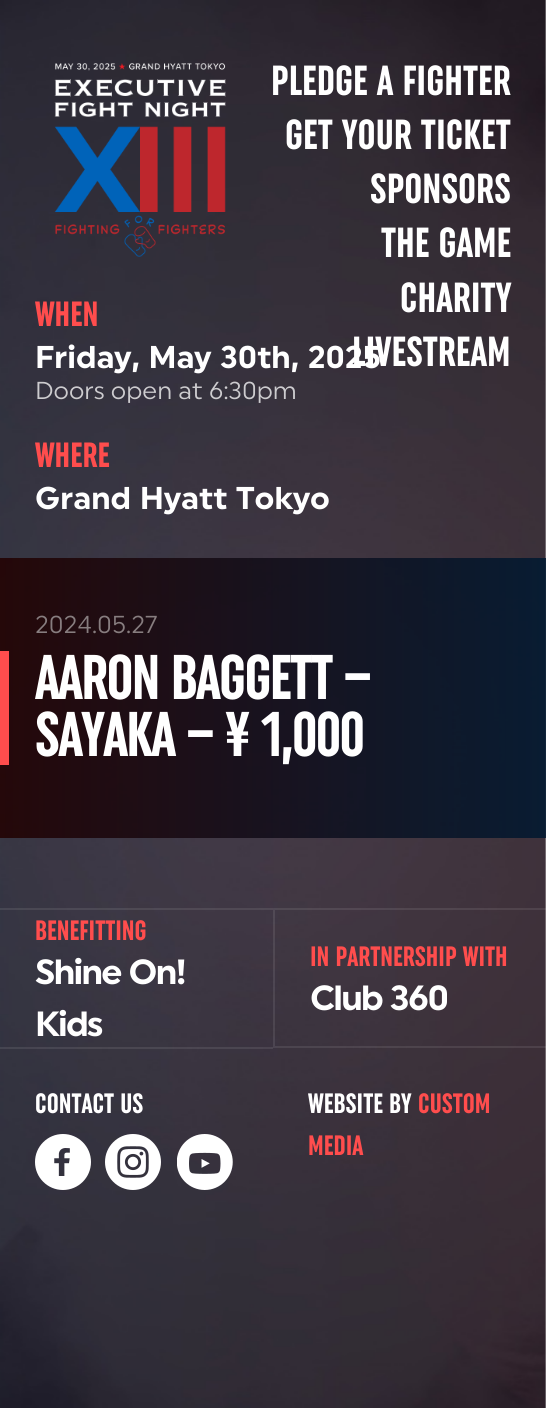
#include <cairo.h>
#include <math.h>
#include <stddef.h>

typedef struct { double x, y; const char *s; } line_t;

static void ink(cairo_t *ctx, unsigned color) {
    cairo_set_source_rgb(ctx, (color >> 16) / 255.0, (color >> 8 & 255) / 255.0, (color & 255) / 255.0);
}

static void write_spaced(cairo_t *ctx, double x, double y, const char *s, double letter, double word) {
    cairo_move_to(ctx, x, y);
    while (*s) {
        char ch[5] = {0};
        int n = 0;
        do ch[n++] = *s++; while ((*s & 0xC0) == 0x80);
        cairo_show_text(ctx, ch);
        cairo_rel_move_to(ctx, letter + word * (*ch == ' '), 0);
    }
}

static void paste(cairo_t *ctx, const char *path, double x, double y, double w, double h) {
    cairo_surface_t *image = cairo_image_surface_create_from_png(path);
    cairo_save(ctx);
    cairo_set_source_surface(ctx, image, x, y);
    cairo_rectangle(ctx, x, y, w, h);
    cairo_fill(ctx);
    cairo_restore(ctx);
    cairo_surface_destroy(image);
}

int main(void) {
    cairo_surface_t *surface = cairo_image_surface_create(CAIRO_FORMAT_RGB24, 546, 1408);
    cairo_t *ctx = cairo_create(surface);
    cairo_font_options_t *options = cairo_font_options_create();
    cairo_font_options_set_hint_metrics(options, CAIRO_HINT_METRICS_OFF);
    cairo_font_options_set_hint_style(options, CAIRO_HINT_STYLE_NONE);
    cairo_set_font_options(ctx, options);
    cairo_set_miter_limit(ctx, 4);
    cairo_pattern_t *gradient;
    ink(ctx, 0xFFFFFF);
    cairo_paint(ctx);
    paste(ctx, "media/1.png", 0, 0, 546, 1408);
    paste(ctx, "media/2.png", 54, 63, 172, 194);
    cairo_select_font_face(ctx, "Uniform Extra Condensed", CAIRO_FONT_SLANT_NORMAL, CAIRO_FONT_WEIGHT_BOLD);
    cairo_set_font_size(ctx, 42);
    ink(ctx, 0xFFFFFF);
    {
        static const line_t items[] = {
            {271, 95, "PLEDGE A FIGHTER"},
            {285, 149, "GET YOUR TICKET"},
            {370, 203, "SPONSORS"},
            {381, 257, "THE GAME"},
            {400, 312, "CHARITY"},
        };
        for (size_t i = 0; i < sizeof items / sizeof *items; i++) {
            cairo_move_to(ctx, items[i].x, items[i].y);
            cairo_show_text(ctx, items[i].s);
        }
    }
    cairo_select_font_face(ctx, "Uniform", CAIRO_FONT_SLANT_NORMAL, CAIRO_FONT_WEIGHT_BOLD);
    cairo_set_font_size(ctx, 31.5);
    cairo_move_to(ctx, 35, 368);
    cairo_show_text(ctx, "Friday, May 30th, 2025");
    cairo_select_font_face(ctx, "Uniform Extra Condensed", CAIRO_FONT_SLANT_NORMAL, CAIRO_FONT_WEIGHT_BOLD);
    cairo_set_font_size(ctx, 42);
    cairo_move_to(ctx, 352, 366);
    cairo_show_text(ctx, "LIVESTREAM");
    cairo_set_font_size(ctx, 35);
    ink(ctx, 0xFF4D4D);
    cairo_move_to(ctx, 35, 326);
    cairo_show_text(ctx, "WHEN");
    cairo_select_font_face(ctx, "Uniform", CAIRO_FONT_SLANT_NORMAL, CAIRO_FONT_WEIGHT_NORMAL);
    cairo_set_font_size(ctx, 24.5);
    ink(ctx, 0xCDCCCF);
    cairo_move_to(ctx, 35, 399);
    cairo_show_text(ctx, "Doors open at 6:30pm");
    cairo_select_font_face(ctx, "Uniform Extra Condensed", CAIRO_FONT_SLANT_NORMAL, CAIRO_FONT_WEIGHT_BOLD);
    cairo_set_font_size(ctx, 35);
    ink(ctx, 0xFF4D4D);
    cairo_move_to(ctx, 35, 467);
    cairo_show_text(ctx, "WHERE");
    cairo_select_font_face(ctx, "Uniform", CAIRO_FONT_SLANT_NORMAL, CAIRO_FONT_WEIGHT_BOLD);
    cairo_set_font_size(ctx, 31.5);
    ink(ctx, 0xFFFFFF);
    cairo_move_to(ctx, 35, 509);
    cairo_show_text(ctx, "Grand Hyatt Tokyo");
    cairo_set_source_rgba(ctx, 0, 0, 0, 0.8);
    cairo_rectangle(ctx, 0, 558, 546, 280);
    cairo_fill(ctx);
    gradient = cairo_pattern_create_linear(546, 698, 0, 698);
    cairo_pattern_add_color_stop_rgba(gradient, 0, 0, 0.275, 0.549, 0.3);
    cairo_pattern_add_color_stop_rgba(gradient, 1, 0.376, 0, 0, 0.3);
    cairo_set_source(ctx, gradient);
    cairo_pattern_destroy(gradient);
    cairo_rectangle(ctx, 0, 558, 546, 280);
    cairo_fill(ctx);
    cairo_select_font_face(ctx, "Uniform", CAIRO_FONT_SLANT_NORMAL, CAIRO_FONT_WEIGHT_NORMAL);
    cairo_set_font_size(ctx, 24.5);
    ink(ctx, 0x877D7F);
    cairo_move_to(ctx, 35, 633);
    cairo_show_text(ctx, "2024.05.27");
    ink(ctx, 0xFF4D4D);
    cairo_rectangle(ctx, 0, 651, 9, 114);
    cairo_fill(ctx);
    cairo_select_font_face(ctx, "Uniform Extra Condensed", CAIRO_FONT_SLANT_NORMAL, CAIRO_FONT_WEIGHT_BOLD);
    cairo_set_font_size(ctx, 63);
    ink(ctx, 0xFFFFFF);
    write_spaced(ctx, 35, 699, "AARON BAGGETT –", -1.75, 0);
    write_spaced(ctx, 35, 756, "SAYAKA – ¥ 1,000", -1.75, 0);
    cairo_set_source_rgba(ctx, 0.933, 0.933, 0.933, 0.1);
    cairo_rectangle(ctx, 0, 908, 273, 2);
    cairo_fill(ctx);
    cairo_rectangle(ctx, 0, 1047, 273, 2);
    cairo_fill(ctx);
    cairo_set_font_size(ctx, 28);
    ink(ctx, 0xFF4D4D);
    cairo_move_to(ctx, 35, 940);
    cairo_show_text(ctx, "BENEFITTING");
    cairo_select_font_face(ctx, "Uniform", CAIRO_FONT_SLANT_NORMAL, CAIRO_FONT_WEIGHT_BOLD);
    cairo_set_font_size(ctx, 35);
    ink(ctx, 0xFFFFFF);
    write_spaced(ctx, 35, 984, "Shine On!", -1.75, 0);
    write_spaced(ctx, 35, 1036, "Kids", -1.75, 0);
    cairo_set_source_rgba(ctx, 0.933, 0.933, 0.933, 0.1);
    cairo_new_path(ctx);
    cairo_move_to(ctx, 273, 908);
    cairo_line_to(ctx, 546, 908);
    cairo_line_to(ctx, 546, 910);
    cairo_line_to(ctx, 275, 910);
    cairo_close_path(ctx);
    cairo_fill(ctx);
    cairo_new_path(ctx);
    cairo_move_to(ctx, 546, 1048);
    cairo_line_to(ctx, 273, 1048);
    cairo_line_to(ctx, 275, 1046);
    cairo_line_to(ctx, 546, 1046);
    cairo_close_path(ctx);
    cairo_fill(ctx);
    cairo_new_path(ctx);
    cairo_move_to(ctx, 273, 1048);
    cairo_line_to(ctx, 273, 908);
    cairo_line_to(ctx, 275, 910);
    cairo_line_to(ctx, 275, 1046);
    cairo_close_path(ctx);
    cairo_fill(ctx);
    cairo_select_font_face(ctx, "Uniform Extra Condensed", CAIRO_FONT_SLANT_NORMAL, CAIRO_FONT_WEIGHT_BOLD);
    cairo_set_font_size(ctx, 28);
    ink(ctx, 0xFF4D4D);
    cairo_move_to(ctx, 310, 966);
    cairo_show_text(ctx, "IN PARTNERSHIP WITH");
    cairo_select_font_face(ctx, "Uniform", CAIRO_FONT_SLANT_NORMAL, CAIRO_FONT_WEIGHT_BOLD);
    cairo_set_font_size(ctx, 35);
    ink(ctx, 0xFFFFFF);
    write_spaced(ctx, 310, 1010, "Club 360", -1.75, 0);
    cairo_select_font_face(ctx, "Uniform Extra Condensed", CAIRO_FONT_SLANT_NORMAL, CAIRO_FONT_WEIGHT_BOLD);
    cairo_set_font_size(ctx, 28);
    cairo_move_to(ctx, 35, 1113);
    cairo_show_text(ctx, "CONTACT US");
    paste(ctx, "media/3.png", 35, 1134, 56, 56);
    paste(ctx, "media/4.png", 105, 1134, 56, 56);
    paste(ctx, "media/5.png", 177, 1134, 56, 56);
    cairo_move_to(ctx, 308, 1113);
    cairo_show_text(ctx, "WEBSITE BY");
    ink(ctx, 0xFF4D4D);
    cairo_move_to(ctx, 418, 1113);
    cairo_show_text(ctx, "CUSTOM");
    cairo_move_to(ctx, 308, 1155);
    cairo_show_text(ctx, "MEDIA");
    cairo_surface_write_to_png(surface, "image.png");
    cairo_font_options_destroy(options);
    cairo_destroy(ctx);
    cairo_surface_destroy(surface);
    return 0;
}
